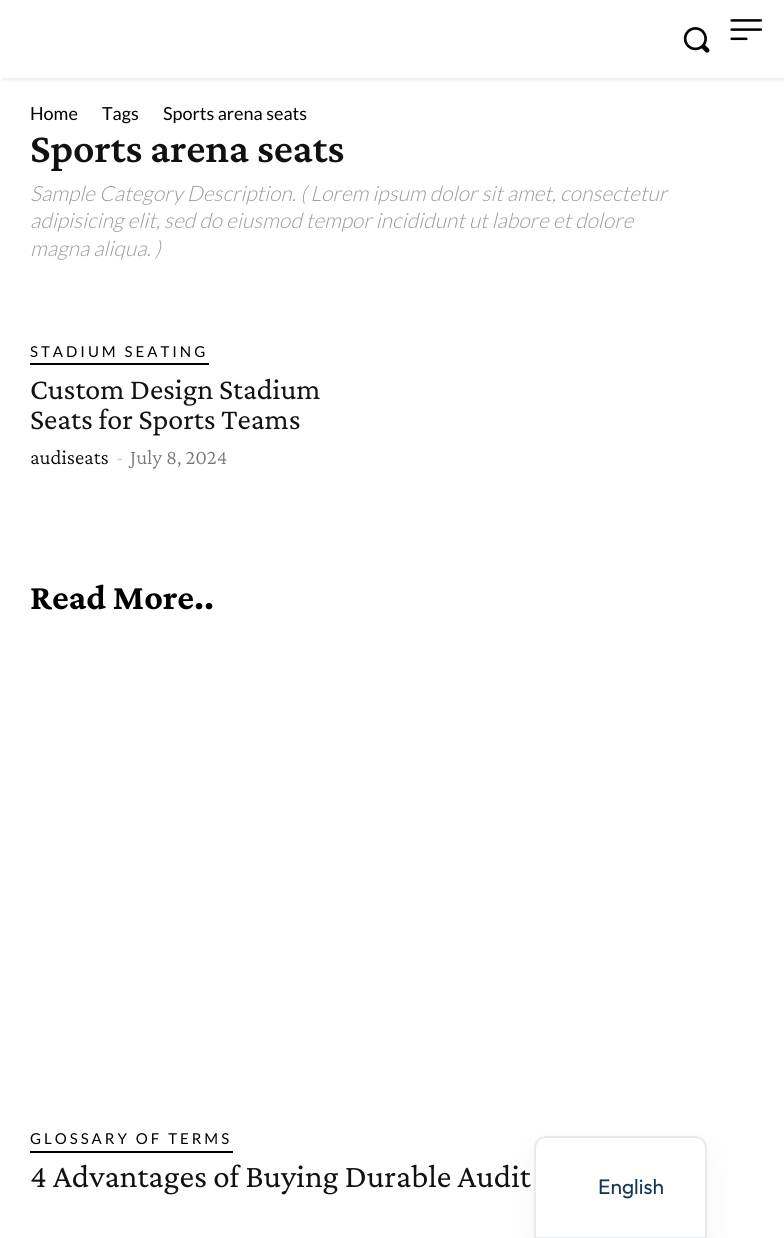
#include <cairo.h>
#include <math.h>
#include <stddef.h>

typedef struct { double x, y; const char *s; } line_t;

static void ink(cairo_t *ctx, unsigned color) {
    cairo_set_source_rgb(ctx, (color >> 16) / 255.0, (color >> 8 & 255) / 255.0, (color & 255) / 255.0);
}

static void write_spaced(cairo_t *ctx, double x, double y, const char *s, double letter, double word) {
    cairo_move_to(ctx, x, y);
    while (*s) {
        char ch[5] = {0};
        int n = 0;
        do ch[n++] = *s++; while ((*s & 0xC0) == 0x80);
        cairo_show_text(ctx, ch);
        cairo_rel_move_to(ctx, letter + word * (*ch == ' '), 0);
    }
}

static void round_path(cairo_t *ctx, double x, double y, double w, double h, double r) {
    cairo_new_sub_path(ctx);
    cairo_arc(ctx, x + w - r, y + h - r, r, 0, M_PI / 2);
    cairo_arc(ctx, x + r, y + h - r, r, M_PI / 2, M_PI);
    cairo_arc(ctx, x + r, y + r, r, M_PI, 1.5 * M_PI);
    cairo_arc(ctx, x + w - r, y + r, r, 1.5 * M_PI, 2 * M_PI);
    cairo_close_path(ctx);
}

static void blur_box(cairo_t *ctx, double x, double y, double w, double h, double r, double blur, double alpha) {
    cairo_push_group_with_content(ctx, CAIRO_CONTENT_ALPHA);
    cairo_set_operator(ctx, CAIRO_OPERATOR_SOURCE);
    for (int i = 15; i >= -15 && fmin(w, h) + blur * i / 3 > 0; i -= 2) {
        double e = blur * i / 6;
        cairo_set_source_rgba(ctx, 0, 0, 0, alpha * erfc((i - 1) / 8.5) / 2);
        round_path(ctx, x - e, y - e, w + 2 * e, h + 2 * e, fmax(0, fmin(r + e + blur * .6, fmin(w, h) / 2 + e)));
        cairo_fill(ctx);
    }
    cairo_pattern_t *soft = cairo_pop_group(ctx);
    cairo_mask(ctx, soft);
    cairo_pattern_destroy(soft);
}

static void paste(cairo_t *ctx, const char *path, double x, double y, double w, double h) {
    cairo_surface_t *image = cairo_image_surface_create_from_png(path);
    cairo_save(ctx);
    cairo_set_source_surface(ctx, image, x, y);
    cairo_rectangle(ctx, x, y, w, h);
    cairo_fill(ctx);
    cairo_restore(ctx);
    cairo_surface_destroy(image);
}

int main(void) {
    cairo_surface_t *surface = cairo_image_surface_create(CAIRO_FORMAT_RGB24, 784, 1238);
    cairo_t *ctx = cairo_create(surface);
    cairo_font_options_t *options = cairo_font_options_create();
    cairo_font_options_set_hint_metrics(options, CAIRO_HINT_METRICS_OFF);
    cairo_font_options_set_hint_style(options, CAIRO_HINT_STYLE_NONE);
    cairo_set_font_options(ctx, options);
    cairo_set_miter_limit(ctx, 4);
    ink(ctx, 0xFFFFFF);
    cairo_paint(ctx);
    paste(ctx, "media/1.png", 683, 27, 27, 26);
    paste(ctx, "media/2.png", 730, 19, 33, 22);
    cairo_save(ctx);
    cairo_rectangle(ctx, 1, 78, 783, 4);
    cairo_clip(ctx);
    ink(ctx, 0x000000);
    blur_box(ctx, 2, 2, 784, 78, 0, 3, 0.08);
    cairo_restore(ctx);
    cairo_select_font_face(ctx, "Lato", CAIRO_FONT_SLANT_NORMAL, CAIRO_FONT_WEIGHT_NORMAL);
    cairo_set_font_size(ctx, 18);
    ink(ctx, 0x000000);
    {
        static const line_t items[] = {
            {30, 120, "Home"},
            {102, 120, "Tags"},
            {163, 120, "Sports arena seats"},
        };
        for (size_t i = 0; i < sizeof items / sizeof *items; i++) {
            cairo_move_to(ctx, items[i].x, items[i].y);
            cairo_show_text(ctx, items[i].s);
        }
    }
    cairo_select_font_face(ctx, "Crimson Pro SemiBold", CAIRO_FONT_SLANT_NORMAL, CAIRO_FONT_WEIGHT_NORMAL);
    cairo_set_font_size(ctx, 42);
    ink(ctx, 0x111111);
    cairo_move_to(ctx, 30, 162);
    cairo_show_text(ctx, "Sports arena seats");
    cairo_select_font_face(ctx, "Lato Light", CAIRO_FONT_SLANT_ITALIC, CAIRO_FONT_WEIGHT_NORMAL);
    cairo_set_font_size(ctx, 21);
    ink(ctx, 0x999999);
    {
        static const line_t items[] = {
            {30, 201, "Sample Category Description. ( Lorem ipsum dolor sit amet, consectetur"},
            {30, 228, "adipisicing elit, sed do eiusmod tempor incididunt ut labore et dolore"},
            {30, 256, "magna aliqua. )"},
        };
        for (size_t i = 0; i < sizeof items / sizeof *items; i++) {
            cairo_move_to(ctx, items[i].x, items[i].y);
            cairo_show_text(ctx, items[i].s);
        }
    }
    ink(ctx, 0x000000);
    cairo_rectangle(ctx, 30, 363, 179, 2);
    cairo_fill(ctx);
    cairo_select_font_face(ctx, "Lato", CAIRO_FONT_SLANT_NORMAL, CAIRO_FONT_WEIGHT_NORMAL);
    cairo_set_font_size(ctx, 15);
    write_spaced(ctx, 30, 357, "STADIUM SEATING", 3, 0);
    cairo_select_font_face(ctx, "Crimson Pro", CAIRO_FONT_SLANT_NORMAL, CAIRO_FONT_WEIGHT_NORMAL);
    cairo_set_font_size(ctx, 30);
    ink(ctx, 0x111111);
    cairo_move_to(ctx, 30, 399);
    cairo_show_text(ctx, "Custom Design Stadium");
    cairo_move_to(ctx, 30, 429);
    cairo_show_text(ctx, "Seats for Sports Teams");
    cairo_select_font_face(ctx, "Crimson Pro Light", CAIRO_FONT_SLANT_NORMAL, CAIRO_FONT_WEIGHT_NORMAL);
    cairo_set_font_size(ctx, 21);
    ink(ctx, 0x000000);
    cairo_move_to(ctx, 30, 464);
    cairo_show_text(ctx, "audiseats");
    cairo_select_font_face(ctx, "Crimson Pro", CAIRO_FONT_SLANT_NORMAL, CAIRO_FONT_WEIGHT_NORMAL);
    ink(ctx, 0xCCCCCC);
    cairo_move_to(ctx, 116, 464);
    cairo_show_text(ctx, "-");
    cairo_select_font_face(ctx, "Crimson Pro Light", CAIRO_FONT_SLANT_NORMAL, CAIRO_FONT_WEIGHT_NORMAL);
    ink(ctx, 0x767676);
    cairo_move_to(ctx, 130, 464);
    cairo_show_text(ctx, "July 8, 2024");
    cairo_select_font_face(ctx, "Crimson Pro", CAIRO_FONT_SLANT_NORMAL, CAIRO_FONT_WEIGHT_BOLD);
    cairo_set_font_size(ctx, 36);
    ink(ctx, 0x000000);
    cairo_move_to(ctx, 30, 609);
    cairo_show_text(ctx, "Read More..");
    cairo_rectangle(ctx, 30, 1151, 203, 2);
    cairo_fill(ctx);
    cairo_select_font_face(ctx, "Lato", CAIRO_FONT_SLANT_NORMAL, CAIRO_FONT_WEIGHT_NORMAL);
    cairo_set_font_size(ctx, 15);
    write_spaced(ctx, 30, 1144, "GLOSSARY OF TERMS", 3, 0);
    cairo_select_font_face(ctx, "Crimson Pro", CAIRO_FONT_SLANT_NORMAL, CAIRO_FONT_WEIGHT_NORMAL);
    cairo_set_font_size(ctx, 33);
    ink(ctx, 0x111111);
    cairo_move_to(ctx, 30, 1187);
    cairo_show_text(ctx, "4 Advantages of Buying Durable Audit");
    ink(ctx, 0x000000);
    blur_box(ctx, 534, 1151, 173, 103, 12, 15, 0.05);
    ink(ctx, 0xFFFFFF);
    cairo_new_path(ctx);
    cairo_move_to(ctx, 546, 1137);
    cairo_line_to(ctx, 695, 1137);
    cairo_curve_to(ctx, 701, 1137, 706, 1142, 706, 1148);
    cairo_line_to(ctx, 706, 1238);
    cairo_line_to(ctx, 535, 1238);
    cairo_line_to(ctx, 535, 1148);
    cairo_curve_to(ctx, 535, 1142, 540, 1137, 546, 1137);
    cairo_close_path(ctx);
    cairo_fill_preserve(ctx);
    ink(ctx, 0xE7EBEE);
    cairo_stroke(ctx);
    cairo_select_font_face(ctx, "Outfit", CAIRO_FONT_SLANT_NORMAL, CAIRO_FONT_WEIGHT_NORMAL);
    cairo_set_font_size(ctx, 21);
    ink(ctx, 0x143852);
    cairo_move_to(ctx, 598, 1194);
    cairo_show_text(ctx, "English");
    cairo_surface_write_to_png(surface, "image.png");
    cairo_font_options_destroy(options);
    cairo_destroy(ctx);
    cairo_surface_destroy(surface);
    return 0;
}
